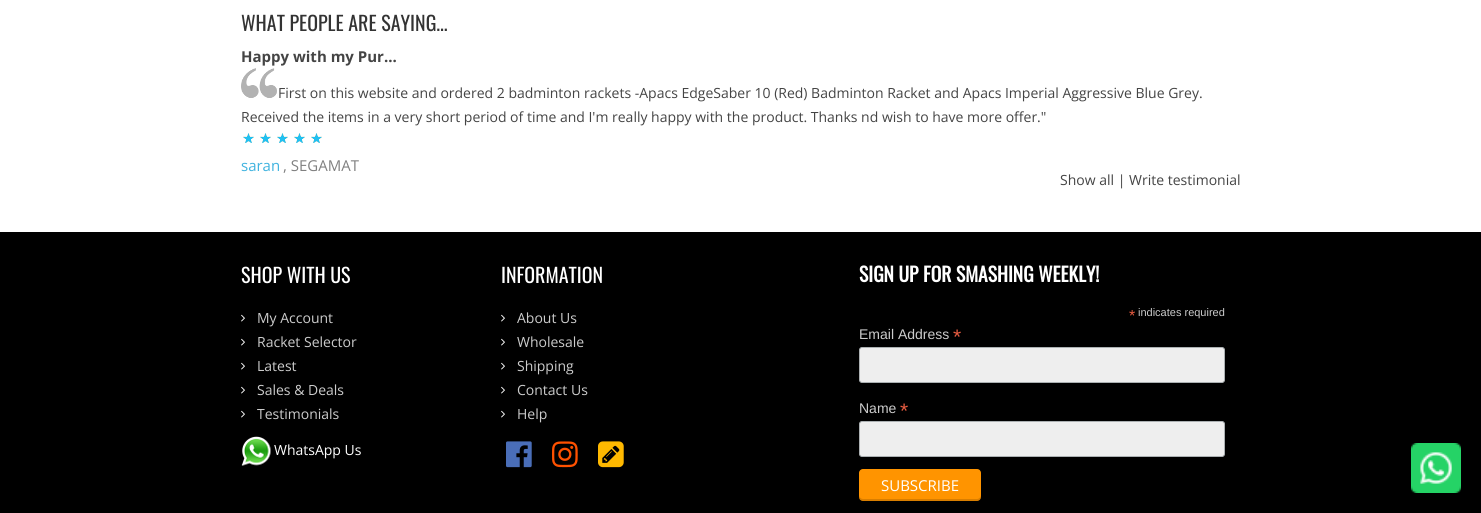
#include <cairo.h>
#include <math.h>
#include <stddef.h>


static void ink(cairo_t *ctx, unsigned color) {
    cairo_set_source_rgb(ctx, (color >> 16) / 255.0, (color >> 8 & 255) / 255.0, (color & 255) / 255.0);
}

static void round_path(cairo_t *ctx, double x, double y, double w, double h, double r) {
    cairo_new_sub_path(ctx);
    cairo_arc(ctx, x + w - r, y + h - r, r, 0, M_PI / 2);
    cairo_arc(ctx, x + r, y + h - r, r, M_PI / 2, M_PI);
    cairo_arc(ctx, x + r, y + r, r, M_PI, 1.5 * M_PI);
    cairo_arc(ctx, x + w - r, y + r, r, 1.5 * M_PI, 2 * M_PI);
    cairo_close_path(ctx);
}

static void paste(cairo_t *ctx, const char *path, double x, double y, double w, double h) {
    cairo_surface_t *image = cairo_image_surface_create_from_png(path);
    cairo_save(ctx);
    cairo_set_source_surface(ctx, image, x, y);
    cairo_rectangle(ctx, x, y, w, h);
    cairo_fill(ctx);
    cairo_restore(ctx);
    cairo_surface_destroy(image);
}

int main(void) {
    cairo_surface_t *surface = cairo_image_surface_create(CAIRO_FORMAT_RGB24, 1481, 513);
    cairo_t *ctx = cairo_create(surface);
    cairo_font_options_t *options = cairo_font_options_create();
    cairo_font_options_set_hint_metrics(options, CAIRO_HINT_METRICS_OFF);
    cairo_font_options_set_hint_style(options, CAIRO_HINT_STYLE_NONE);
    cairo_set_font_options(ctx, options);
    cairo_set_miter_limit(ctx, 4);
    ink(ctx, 0xFFFFFF);
    cairo_paint(ctx);
    cairo_select_font_face(ctx, "Oswald", CAIRO_FONT_SLANT_NORMAL, CAIRO_FONT_WEIGHT_NORMAL);
    cairo_set_font_size(ctx, 20);
    ink(ctx, 0x333333);
    cairo_move_to(ctx, 241, 31);
    cairo_show_text(ctx, "WHAT PEOPLE ARE SAYING...");
    cairo_select_font_face(ctx, "Open Sans", CAIRO_FONT_SLANT_NORMAL, CAIRO_FONT_WEIGHT_BOLD);
    cairo_set_font_size(ctx, 15);
    ink(ctx, 0x444444);
    cairo_move_to(ctx, 241, 62);
    cairo_show_text(ctx, "Happy with my Pur...");
    paste(ctx, "media/1.png", 241, 68, 36, 30);
    cairo_select_font_face(ctx, "Open Sans", CAIRO_FONT_SLANT_NORMAL, CAIRO_FONT_WEIGHT_NORMAL);
    cairo_set_font_size(ctx, 14);
    cairo_move_to(ctx, 278, 98);
    cairo_show_text(ctx, "First on this website and ordered 2 badminton rackets -Apacs EdgeSaber 10 (Red) Badminton Racket and Apacs Imperial Aggressive Blue Grey.");
    cairo_move_to(ctx, 241, 122);
    cairo_show_text(ctx, "Received the items in a very short period of time and I'm really happy with the product. Thanks nd wish to have more offer.\"");
    paste(ctx, "media/2.png", 243, 133, 79, 10);
    cairo_set_font_size(ctx, 15);
    ink(ctx, 0x40B3DF);
    cairo_move_to(ctx, 241, 171);
    cairo_show_text(ctx, "saran");
    ink(ctx, 0x808080);
    cairo_move_to(ctx, 283, 171);
    cairo_show_text(ctx, ", SEGAMAT");
    cairo_set_font_size(ctx, 14);
    ink(ctx, 0x444444);
    cairo_move_to(ctx, 1060, 185);
    cairo_show_text(ctx, "Show all | Write testimonial");
    ink(ctx, 0x000000);
    cairo_rectangle(ctx, 0, 232, 1481, 281);
    cairo_fill(ctx);
    cairo_select_font_face(ctx, "Oswald", CAIRO_FONT_SLANT_NORMAL, CAIRO_FONT_WEIGHT_NORMAL);
    cairo_set_font_size(ctx, 20);
    ink(ctx, 0xFFFFFF);
    cairo_move_to(ctx, 241, 283);
    cairo_show_text(ctx, "SHOP WITH US");
    paste(ctx, "media/3.png", 241, 314, 4, 8);
    cairo_select_font_face(ctx, "Open Sans", CAIRO_FONT_SLANT_NORMAL, CAIRO_FONT_WEIGHT_NORMAL);
    cairo_set_font_size(ctx, 14);
    ink(ctx, 0xCCCCCC);
    cairo_move_to(ctx, 257, 323);
    cairo_show_text(ctx, "My Account");
    paste(ctx, "media/3.png", 241, 338, 4, 8);
    cairo_move_to(ctx, 257, 347);
    cairo_show_text(ctx, "Racket Selector");
    paste(ctx, "media/3.png", 241, 362, 4, 8);
    cairo_move_to(ctx, 257, 371);
    cairo_show_text(ctx, "Latest");
    paste(ctx, "media/3.png", 241, 386, 4, 8);
    cairo_move_to(ctx, 257, 395);
    cairo_show_text(ctx, "Sales & Deals");
    paste(ctx, "media/3.png", 241, 410, 4, 8);
    cairo_move_to(ctx, 257, 419);
    cairo_show_text(ctx, "Testimonials");
    paste(ctx, "media/4.png", 241, 436, 30, 30);
    ink(ctx, 0xFFFFFF);
    cairo_move_to(ctx, 274, 455);
    cairo_show_text(ctx, "WhatsApp Us");
    cairo_select_font_face(ctx, "Oswald", CAIRO_FONT_SLANT_NORMAL, CAIRO_FONT_WEIGHT_NORMAL);
    cairo_set_font_size(ctx, 20);
    cairo_move_to(ctx, 501, 283);
    cairo_show_text(ctx, "INFORMATION");
    paste(ctx, "media/3.png", 501, 314, 4, 8);
    cairo_select_font_face(ctx, "Open Sans", CAIRO_FONT_SLANT_NORMAL, CAIRO_FONT_WEIGHT_NORMAL);
    cairo_set_font_size(ctx, 14);
    ink(ctx, 0xCCCCCC);
    cairo_move_to(ctx, 517, 323);
    cairo_show_text(ctx, "About Us");
    paste(ctx, "media/3.png", 501, 338, 4, 8);
    cairo_move_to(ctx, 517, 347);
    cairo_show_text(ctx, "Wholesale");
    paste(ctx, "media/3.png", 501, 362, 4, 8);
    cairo_move_to(ctx, 517, 371);
    cairo_show_text(ctx, "Shipping");
    paste(ctx, "media/3.png", 501, 386, 4, 8);
    cairo_move_to(ctx, 517, 395);
    cairo_show_text(ctx, "Contact Us");
    paste(ctx, "media/3.png", 501, 410, 4, 8);
    cairo_move_to(ctx, 517, 419);
    cairo_show_text(ctx, "Help");
    paste(ctx, "media/5.png", 506, 441, 26, 27);
    paste(ctx, "media/6.png", 552, 441, 26, 27);
    paste(ctx, "media/7.png", 598, 441, 26, 27);
    cairo_select_font_face(ctx, "Oswald", CAIRO_FONT_SLANT_NORMAL, CAIRO_FONT_WEIGHT_BOLD);
    cairo_set_font_size(ctx, 19.6);
    ink(ctx, 0xFFFFFF);
    cairo_move_to(ctx, 859, 282);
    cairo_show_text(ctx, "SIGN UP FOR SMASHING WEEKLY!");
    cairo_select_font_face(ctx, "Liberation Sans", CAIRO_FONT_SLANT_NORMAL, CAIRO_FONT_WEIGHT_NORMAL);
    cairo_set_font_size(ctx, 16);
    ink(ctx, 0xE85C41);
    cairo_move_to(ctx, 1129, 321);
    cairo_show_text(ctx, "*");
    cairo_set_font_size(ctx, 11);
    ink(ctx, 0xCCCCCC);
    cairo_move_to(ctx, 1138, 316);
    cairo_show_text(ctx, "indicates required");
    cairo_set_font_size(ctx, 14);
    cairo_move_to(ctx, 859, 339);
    cairo_show_text(ctx, "Email Address");
    cairo_set_font_size(ctx, 21);
    ink(ctx, 0xE85C41);
    cairo_move_to(ctx, 953, 344);
    cairo_show_text(ctx, "*");
    ink(ctx, 0xEEEEEE);
    round_path(ctx, 859.5, 347.5, 365, 35, 2.5);
    cairo_fill_preserve(ctx);
    ink(ctx, 0xABB0B2);
    cairo_set_line_width(ctx, 1);
    cairo_stroke(ctx);
    cairo_set_font_size(ctx, 14);
    ink(ctx, 0xCCCCCC);
    cairo_move_to(ctx, 859, 413);
    cairo_show_text(ctx, "Name");
    cairo_set_font_size(ctx, 21);
    ink(ctx, 0xE85C41);
    cairo_move_to(ctx, 900, 418);
    cairo_show_text(ctx, "*");
    ink(ctx, 0xEEEEEE);
    round_path(ctx, 859.5, 421.5, 365, 35, 2.5);
    cairo_fill_preserve(ctx);
    ink(ctx, 0xABB0B2);
    cairo_stroke(ctx);
    ink(ctx, 0xFF9400);
    round_path(ctx, 859, 469, 122, 32, 4);
    cairo_fill(ctx);
    cairo_set_source_rgba(ctx, 0, 0, 0, 0.15);
    cairo_new_path(ctx);
    cairo_move_to(ctx, 859, 495);
    cairo_line_to(ctx, 859, 497);
    cairo_curve_to(ctx, 859, 499, 861, 501, 863, 501);
    cairo_line_to(ctx, 977, 501);
    cairo_curve_to(ctx, 979, 501, 981, 499, 981, 497);
    cairo_line_to(ctx, 981, 495);
    cairo_curve_to(ctx, 981, 497, 979, 499, 977, 499);
    cairo_line_to(ctx, 863, 499);
    cairo_curve_to(ctx, 861, 499, 859, 497, 859, 495);
    cairo_close_path(ctx);
    cairo_fill(ctx);
    cairo_select_font_face(ctx, "Open Sans", CAIRO_FONT_SLANT_NORMAL, CAIRO_FONT_WEIGHT_NORMAL);
    cairo_set_font_size(ctx, 15);
    ink(ctx, 0xFFFFFF);
    cairo_move_to(ctx, 881, 491);
    cairo_show_text(ctx, "SUBSCRIBE");
    paste(ctx, "media/8.png", 1411, 443, 50, 50);
    cairo_surface_write_to_png(surface, "image.png");
    cairo_font_options_destroy(options);
    cairo_destroy(ctx);
    cairo_surface_destroy(surface);
    return 0;
}
